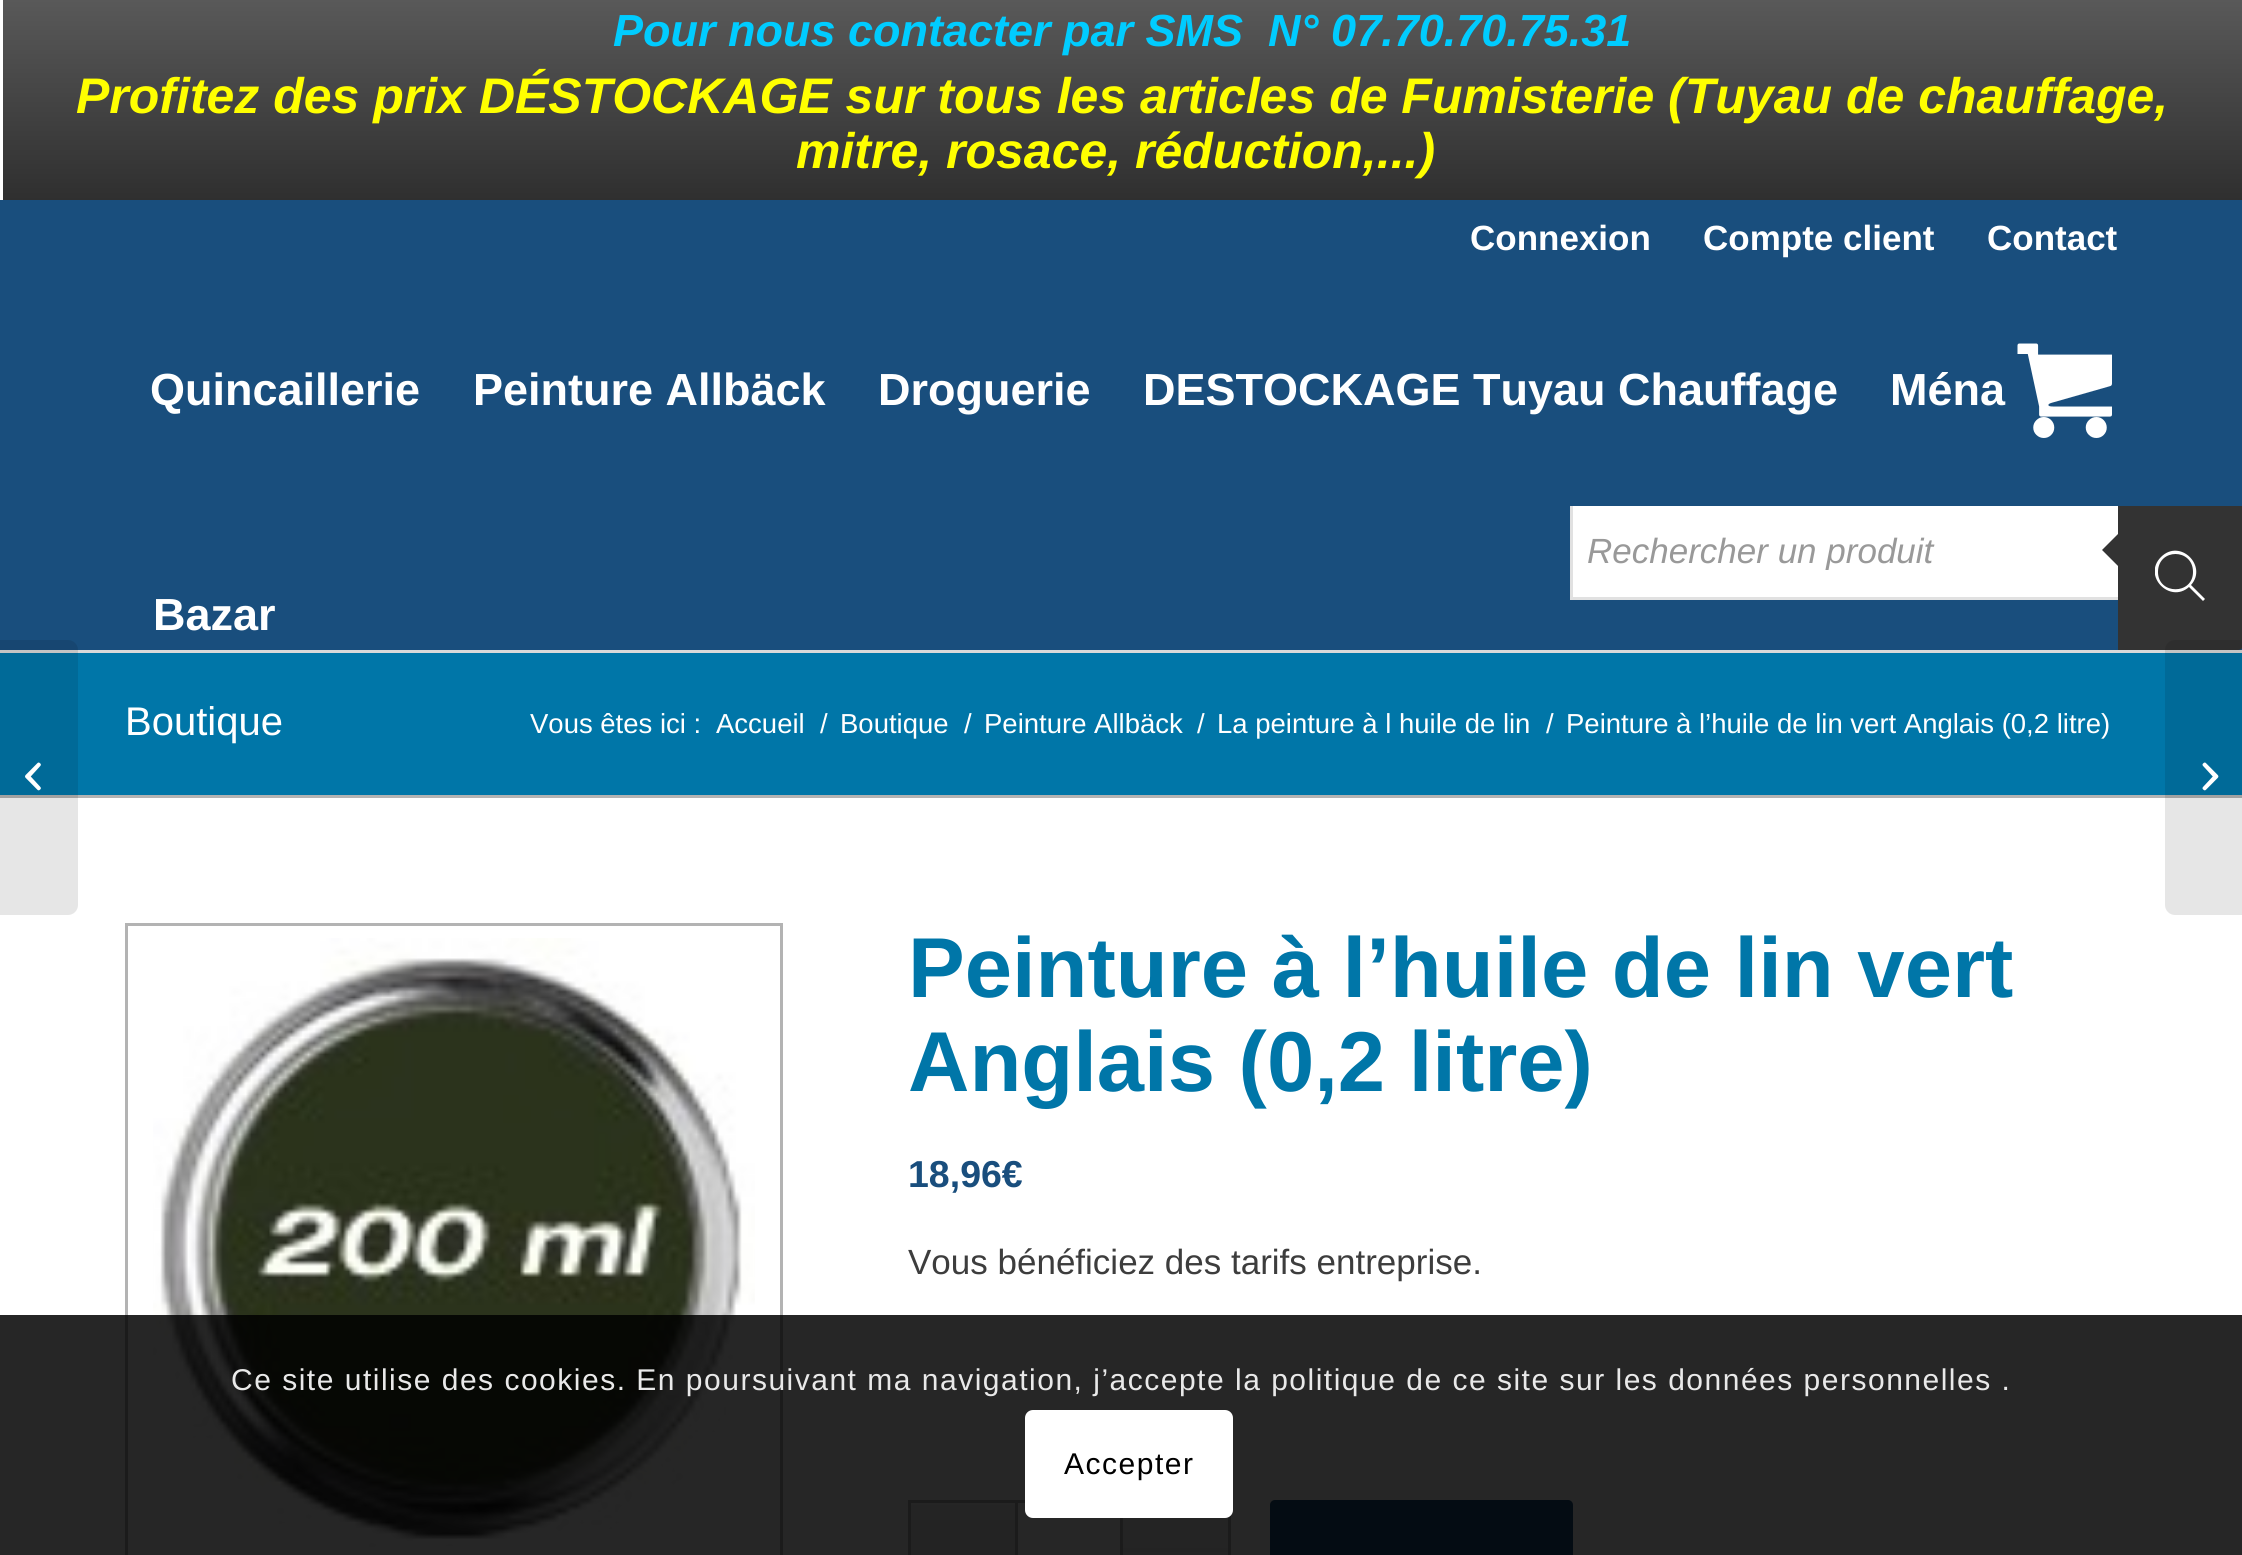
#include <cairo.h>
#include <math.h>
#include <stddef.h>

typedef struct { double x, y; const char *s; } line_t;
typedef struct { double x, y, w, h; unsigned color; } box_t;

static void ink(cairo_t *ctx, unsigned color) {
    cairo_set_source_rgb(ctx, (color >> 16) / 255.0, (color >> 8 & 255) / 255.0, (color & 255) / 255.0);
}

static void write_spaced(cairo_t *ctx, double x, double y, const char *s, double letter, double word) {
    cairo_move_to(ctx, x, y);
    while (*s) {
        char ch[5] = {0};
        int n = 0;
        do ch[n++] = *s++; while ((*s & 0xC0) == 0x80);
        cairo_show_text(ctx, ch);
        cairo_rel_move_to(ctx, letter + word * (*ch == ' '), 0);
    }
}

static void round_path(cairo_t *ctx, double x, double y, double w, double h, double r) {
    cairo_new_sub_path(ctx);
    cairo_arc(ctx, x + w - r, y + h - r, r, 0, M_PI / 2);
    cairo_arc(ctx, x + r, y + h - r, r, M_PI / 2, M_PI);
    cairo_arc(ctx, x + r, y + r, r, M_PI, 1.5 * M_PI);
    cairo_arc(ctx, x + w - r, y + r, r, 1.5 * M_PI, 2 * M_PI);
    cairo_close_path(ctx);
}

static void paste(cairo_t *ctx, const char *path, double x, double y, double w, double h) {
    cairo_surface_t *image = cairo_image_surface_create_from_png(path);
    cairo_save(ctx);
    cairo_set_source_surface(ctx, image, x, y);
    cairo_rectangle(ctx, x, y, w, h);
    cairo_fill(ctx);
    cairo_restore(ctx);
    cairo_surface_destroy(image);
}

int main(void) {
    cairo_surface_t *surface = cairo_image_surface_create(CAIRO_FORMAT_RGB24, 2242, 1555);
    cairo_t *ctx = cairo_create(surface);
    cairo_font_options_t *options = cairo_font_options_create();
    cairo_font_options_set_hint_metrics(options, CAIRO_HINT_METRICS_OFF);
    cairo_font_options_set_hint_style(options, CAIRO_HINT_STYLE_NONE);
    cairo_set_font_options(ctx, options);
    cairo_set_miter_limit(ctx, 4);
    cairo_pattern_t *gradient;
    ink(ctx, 0x194E7D);
    cairo_paint(ctx);
    gradient = cairo_pattern_create_linear(1121, -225, 1121, 425);
    cairo_pattern_add_color_stop_rgba(gradient, 0, 0.533, 0.533, 0.533, 1);
    cairo_pattern_add_color_stop_rgba(gradient, 1, 0, 0, 0, 1);
    cairo_set_source(ctx, gradient);
    cairo_pattern_destroy(gradient);
    cairo_rectangle(ctx, 3, 0, 2239, 200);
    cairo_fill(ctx);
    ink(ctx, 0xFFFFFF);
    cairo_rectangle(ctx, 0, 0, 3, 200);
    cairo_fill(ctx);
    cairo_select_font_face(ctx, "Liberation Sans", CAIRO_FONT_SLANT_ITALIC, CAIRO_FONT_WEIGHT_BOLD);
    cairo_set_font_size(ctx, 45);
    ink(ctx, 0x00CCFF);
    cairo_move_to(ctx, 613, 46);
    cairo_show_text(ctx, "Pour nous contacter par SMS  N° 07.70.70.75.31");
    cairo_set_font_size(ctx, 50);
    ink(ctx, 0xFFFF00);
    cairo_move_to(ctx, 76, 113);
    cairo_show_text(ctx, "Profitez des prix DÉSTOCKAGE sur tous les articles de Fumisterie (Tuyau de chauffage,");
    cairo_move_to(ctx, 796, 168);
    cairo_show_text(ctx, "mitre, rosace, réduction,...)");
    cairo_select_font_face(ctx, "Liberation Sans", CAIRO_FONT_SLANT_NORMAL, CAIRO_FONT_WEIGHT_BOLD);
    cairo_set_font_size(ctx, 35);
    ink(ctx, 0xFFFFFF);
    {
        static const line_t items[] = {
            {1470, 250, "Connexion"},
            {1703, 250, "Compte client"},
            {1987, 250, "Contact"},
        };
        for (size_t i = 0; i < sizeof items / sizeof *items; i++) {
            cairo_move_to(ctx, items[i].x, items[i].y);
            cairo_show_text(ctx, items[i].s);
        }
    }
    cairo_set_font_size(ctx, 45);
    {
        static const line_t items[] = {
            {150, 405, "Quincaillerie"},
            {473, 405, "Peinture Allbäck"},
            {878, 405, "Droguerie"},
            {1143, 405, "DESTOCKAGE Tuyau Chauffage"},
            {1890, 405, "Ména"},
            {153, 630, "Bazar"},
        };
        for (size_t i = 0; i < sizeof items / sizeof *items; i++) {
            cairo_move_to(ctx, items[i].x, items[i].y);
            cairo_show_text(ctx, items[i].s);
        }
    }
    paste(ctx, "media/1.png", 2017, 343, 95, 95);
    cairo_rectangle(ctx, 1573, 506, 545, 91);
    cairo_fill(ctx);
    cairo_rectangle(ctx, 1571.5, 501.5, 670, 97);
    ink(ctx, 0xE1E1E1);
    cairo_set_line_width(ctx, 3);
    cairo_stroke(ctx);
    ink(ctx, 0x333333);
    cairo_new_path(ctx);
    cairo_move_to(ctx, 2118, 500);
    cairo_line_to(ctx, 2238, 500);
    cairo_curve_to(ctx, 2241, 500, 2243, 502, 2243, 505);
    cairo_line_to(ctx, 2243, 645);
    cairo_curve_to(ctx, 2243, 648, 2241, 650, 2238, 650);
    cairo_line_to(ctx, 2118, 650);
    cairo_close_path(ctx);
    cairo_fill(ctx);
    {
        static const box_t items[] = {
            {1570, 500, 672, 6, 0x194E7D},
            {0, 653, 2242, 142, 0x0076A8},
            {0, 650, 2242, 3, 0xD9D9D9},
            {0, 798, 2242, 757, 0xFFFFFF},
            {0, 795, 2242, 3, 0xB3B3B3},
        };
        for (size_t i = 0; i < sizeof items / sizeof *items; i++) {
            ink(ctx, items[i].color);
            cairo_rectangle(ctx, items[i].x, items[i].y, items[i].w, items[i].h);
            cairo_fill(ctx);
        }
    }
    cairo_set_source_rgba(ctx, 0, 0, 0, 0.1);
    cairo_new_path(ctx);
    cairo_move_to(ctx, 0, 640);
    cairo_line_to(ctx, 68, 640);
    cairo_curve_to(ctx, 73.5, 640, 78, 644.5, 78, 650);
    cairo_line_to(ctx, 78, 905);
    cairo_curve_to(ctx, 78, 910.5, 73.5, 915, 68, 915);
    cairo_line_to(ctx, 0, 915);
    cairo_close_path(ctx);
    cairo_fill(ctx);
    paste(ctx, "media/2.png", 25, 762, 16, 29);
    cairo_save(ctx);
    cairo_rectangle(ctx, 1588, 530, 637, 40);
    cairo_clip(ctx);
    cairo_select_font_face(ctx, "Liberation Sans", CAIRO_FONT_SLANT_ITALIC, CAIRO_FONT_WEIGHT_NORMAL);
    cairo_set_font_size(ctx, 35);
    ink(ctx, 0x999999);
    cairo_move_to(ctx, 1587, 563);
    cairo_show_text(ctx, "Rechercher un produit");
    cairo_restore(ctx);
    ink(ctx, 0x333333);
    cairo_new_path(ctx);
    cairo_move_to(ctx, 2122, 530);
    cairo_line_to(ctx, 2122, 570);
    cairo_line_to(ctx, 2102, 550);
    cairo_close_path(ctx);
    cairo_fill(ctx);
    cairo_save(ctx);
    cairo_rectangle(ctx, 2155, 528, 50, 97);
    cairo_clip(ctx);
    ink(ctx, 0xFFFFFF);
    cairo_new_path(ctx);
    cairo_move_to(ctx, 2205, 599);
    cairo_line_to(ctx, 2191, 585);
    cairo_curve_to(ctx, 2208, 566, 2180, 538, 2161, 557);
    cairo_curve_to(ctx, 2142, 576, 2170, 604, 2189, 587);
    cairo_line_to(ctx, 2203, 601);
    cairo_close_path(ctx);
    cairo_move_to(ctx, 2158, 572);
    cairo_curve_to(ctx, 2158, 548, 2193, 548, 2193, 572);
    cairo_curve_to(ctx, 2193, 595, 2158, 595, 2158, 572);
    cairo_close_path(ctx);
    cairo_fill(ctx);
    cairo_restore(ctx);
    cairo_select_font_face(ctx, "Liberation Sans", CAIRO_FONT_SLANT_NORMAL, CAIRO_FONT_WEIGHT_NORMAL);
    cairo_set_font_size(ctx, 40);
    ink(ctx, 0xFFFFFF);
    cairo_move_to(ctx, 125, 735);
    cairo_show_text(ctx, "Boutique");
    cairo_set_font_size(ctx, 27.5);
    {
        static const line_t items[] = {
            {530, 733, "Vous êtes ici :"},
            {716, 733, "Accueil"},
            {820, 733, "/"},
            {840, 733, "Boutique"},
            {964, 733, "/"},
            {984, 733, "Peinture Allbäck"},
            {1197, 733, "/"},
            {1217, 733, "La peinture à l huile de lin"},
            {1546, 733, "/"},
            {1566, 733, "Peinture à l’huile de lin vert Anglais (0,2 litre)"},
        };
        for (size_t i = 0; i < sizeof items / sizeof *items; i++) {
            cairo_move_to(ctx, items[i].x, items[i].y);
            cairo_show_text(ctx, items[i].s);
        }
    }
    cairo_rectangle(ctx, 126.5, 924.5, 655, 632);
    ink(ctx, 0xB3B3B3);
    cairo_stroke(ctx);
    paste(ctx, "media/3.png", 153, 938, 602, 609);
    cairo_select_font_face(ctx, "Liberation Sans", CAIRO_FONT_SLANT_NORMAL, CAIRO_FONT_WEIGHT_BOLD);
    cairo_set_font_size(ctx, 85);
    ink(ctx, 0x0076A8);
    cairo_move_to(ctx, 908, 997);
    cairo_show_text(ctx, "Peinture à l’huile de lin vert");
    cairo_move_to(ctx, 908, 1091);
    cairo_show_text(ctx, "Anglais (0,2 litre)");
    cairo_set_font_size(ctx, 37.5);
    ink(ctx, 0x194E7D);
    cairo_move_to(ctx, 908, 1187);
    cairo_show_text(ctx, "18,96€");
    cairo_select_font_face(ctx, "Liberation Sans", CAIRO_FONT_SLANT_NORMAL, CAIRO_FONT_WEIGHT_NORMAL);
    cairo_set_font_size(ctx, 35);
    ink(ctx, 0x3D3D3D);
    cairo_move_to(ctx, 908, 1274);
    cairo_show_text(ctx, "Vous bénéficiez des tarifs entreprise.");
    {
        static const box_t items[] = {
            {908, 1500, 107, 3, 0xB3B3B3},
            {908, 1500, 3, 55, 0xB3B3B3},
            {911, 1503, 104, 52, 0xEEEEEE},
        };
        for (size_t i = 0; i < sizeof items / sizeof *items; i++) {
            ink(ctx, items[i].color);
            cairo_rectangle(ctx, items[i].x, items[i].y, items[i].w, items[i].h);
            cairo_fill(ctx);
        }
    }
    cairo_rectangle(ctx, 1016.5, 1501.5, 105, 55);
    ink(ctx, 0xB3B3B3);
    cairo_stroke(ctx);
    paste(ctx, "media/4.png", 911, 1503, 104, 17);
    ink(ctx, 0xEEEEEE);
    cairo_rectangle(ctx, 1123, 1517, 105, 38);
    cairo_fill(ctx);
    paste(ctx, "media/5.png", 1122, 1517, 106, 38);
    ink(ctx, 0xB3B3B3);
    cairo_rectangle(ctx, 1228, 1515, 3, 40);
    cairo_fill(ctx);
    ink(ctx, 0x194E7D);
    round_path(ctx, 1270, 1500, 303, 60, 5);
    cairo_fill(ctx);
    cairo_set_source_rgba(ctx, 0, 0, 0, 0.1);
    cairo_new_path(ctx);
    cairo_move_to(ctx, 2175, 640);
    cairo_line_to(ctx, 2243, 640);
    cairo_line_to(ctx, 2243, 915);
    cairo_line_to(ctx, 2175, 915);
    cairo_curve_to(ctx, 2169.5, 915, 2165, 910.5, 2165, 905);
    cairo_line_to(ctx, 2165, 650);
    cairo_curve_to(ctx, 2165, 644.5, 2169.5, 640, 2175, 640);
    cairo_close_path(ctx);
    cairo_fill(ctx);
    paste(ctx, "media/6.png", 2202, 762, 17, 29);
    cairo_set_source_rgba(ctx, 0, 0, 0, 0.85);
    cairo_rectangle(ctx, 0, 1315, 2242, 240);
    cairo_fill(ctx);
    cairo_set_font_size(ctx, 30);
    ink(ctx, 0xE9E9E9);
    write_spaced(ctx, 231, 1390, "Ce site utilise des cookies. En poursuivant ma navigation, j’accepte la politique de ce site sur les données personnelles .", 1.5, 0);
    ink(ctx, 0xFFFFFF);
    round_path(ctx, 1025, 1410, 208, 108, 8);
    cairo_fill(ctx);
    ink(ctx, 0x000000);
    write_spaced(ctx, 1064, 1474, "Accepter", 1.5, 0);
    cairo_surface_write_to_png(surface, "image.png");
    cairo_font_options_destroy(options);
    cairo_destroy(ctx);
    cairo_surface_destroy(surface);
    return 0;
}
